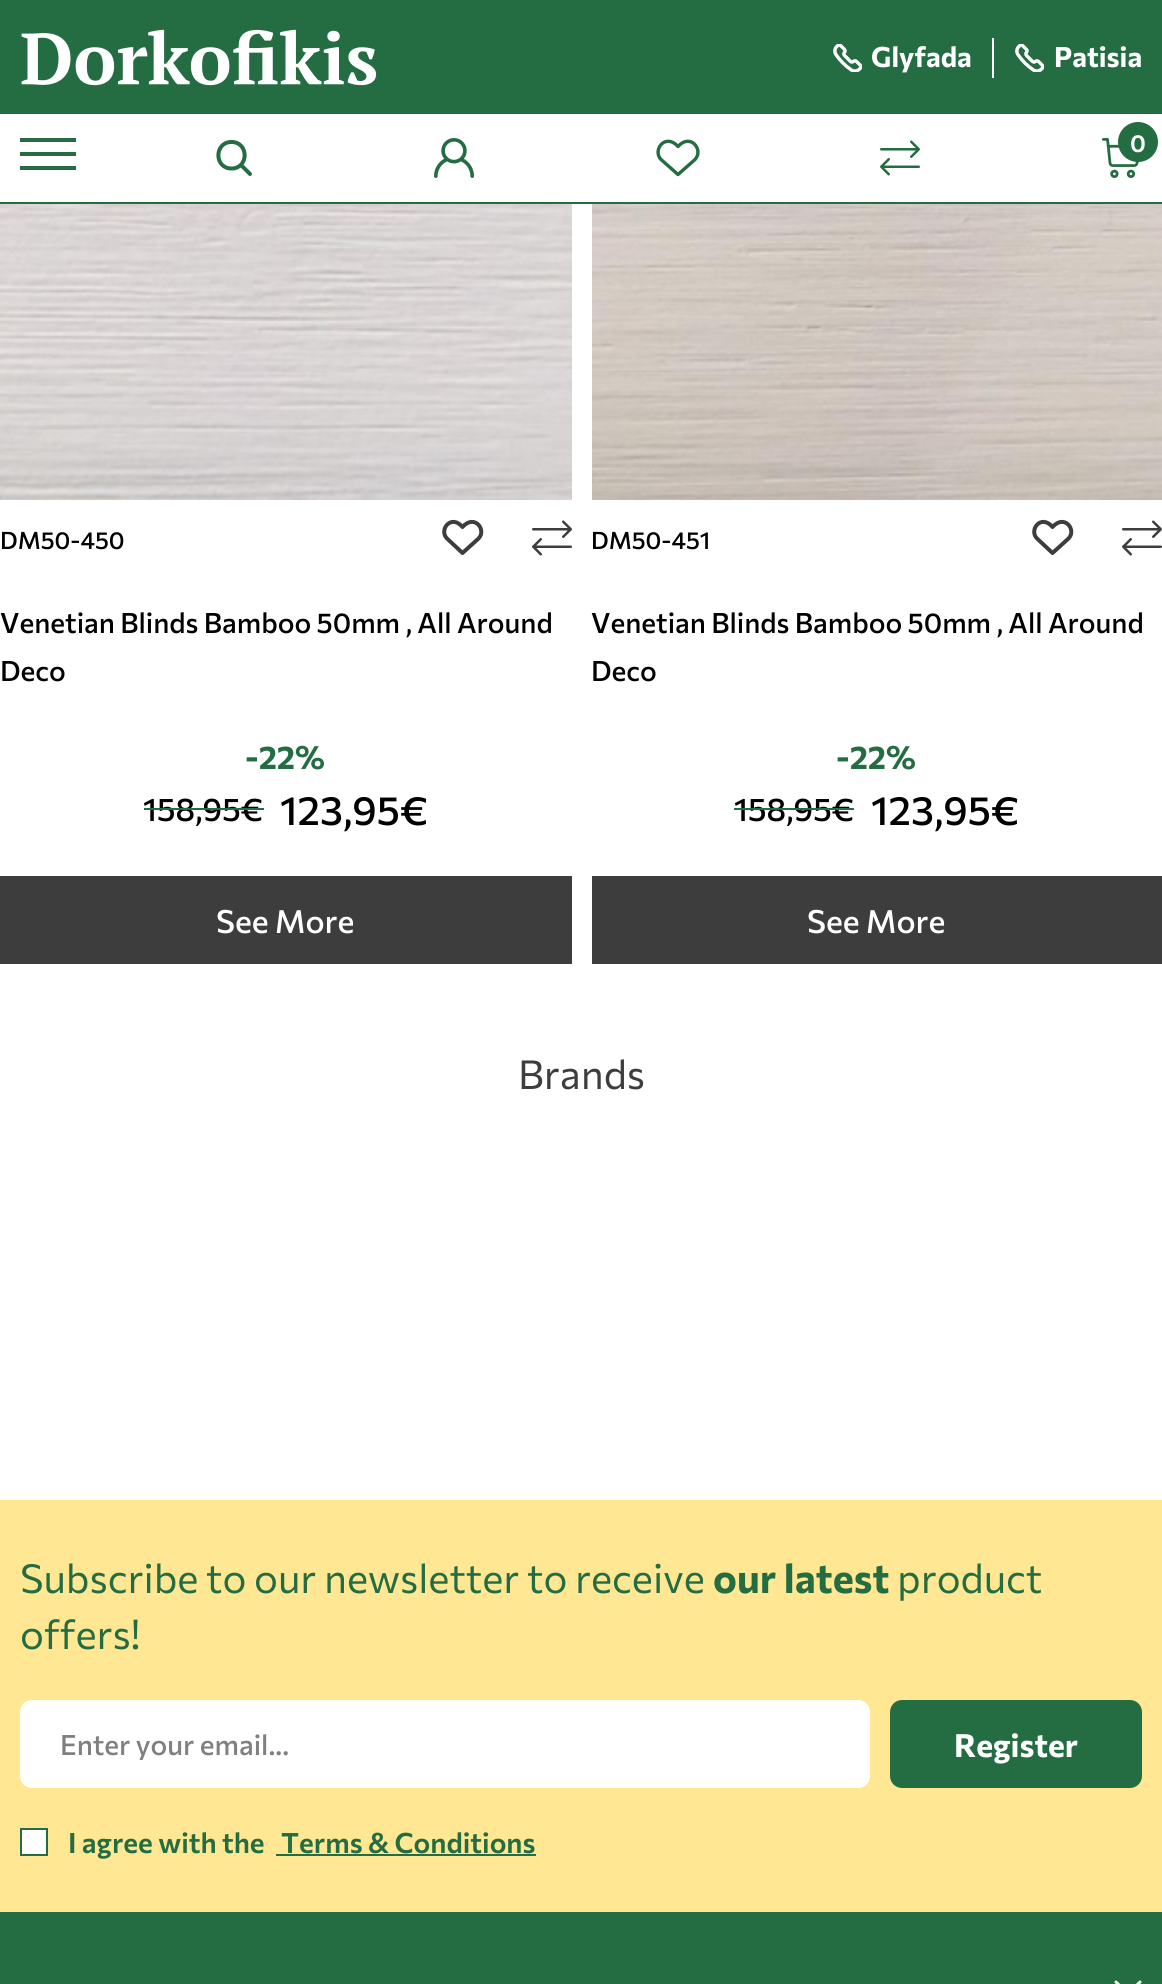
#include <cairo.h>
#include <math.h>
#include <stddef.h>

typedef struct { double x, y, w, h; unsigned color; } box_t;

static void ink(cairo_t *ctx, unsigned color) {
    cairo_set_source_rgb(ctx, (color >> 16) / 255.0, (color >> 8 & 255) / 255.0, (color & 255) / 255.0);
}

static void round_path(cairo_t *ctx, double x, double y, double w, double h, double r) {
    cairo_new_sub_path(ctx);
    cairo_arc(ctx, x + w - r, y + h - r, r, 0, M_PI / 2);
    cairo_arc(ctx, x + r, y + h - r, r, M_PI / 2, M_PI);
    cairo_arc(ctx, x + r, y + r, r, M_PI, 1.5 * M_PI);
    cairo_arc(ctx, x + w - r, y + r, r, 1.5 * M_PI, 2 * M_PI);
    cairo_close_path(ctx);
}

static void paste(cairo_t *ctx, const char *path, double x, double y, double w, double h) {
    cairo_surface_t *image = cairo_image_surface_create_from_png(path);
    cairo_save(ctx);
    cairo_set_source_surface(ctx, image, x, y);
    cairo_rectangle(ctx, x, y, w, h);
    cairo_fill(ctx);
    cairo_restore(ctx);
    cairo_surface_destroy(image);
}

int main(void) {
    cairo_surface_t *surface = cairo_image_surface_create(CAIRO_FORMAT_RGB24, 1162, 1984);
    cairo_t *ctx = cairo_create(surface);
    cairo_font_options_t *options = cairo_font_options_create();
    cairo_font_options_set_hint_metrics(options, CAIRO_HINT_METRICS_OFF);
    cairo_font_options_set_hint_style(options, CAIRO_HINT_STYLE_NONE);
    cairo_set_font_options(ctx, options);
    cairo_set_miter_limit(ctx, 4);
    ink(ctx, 0xFFFFFF);
    cairo_paint(ctx);
    ink(ctx, 0x246C41);
    cairo_rectangle(ctx, 0, 0, 1162, 114);
    cairo_fill(ctx);
    paste(ctx, "media/1.png", 21, 29, 356, 57);
    ink(ctx, 0xFFFFFF);
    cairo_rectangle(ctx, 992, 38, 2, 40);
    cairo_fill(ctx);
    paste(ctx, "media/2.png", 833, 44, 29, 28);
    cairo_select_font_face(ctx, "Commissioner", CAIRO_FONT_SLANT_NORMAL, CAIRO_FONT_WEIGHT_BOLD);
    cairo_set_font_size(ctx, 28);
    cairo_move_to(ctx, 871, 67);
    cairo_show_text(ctx, "Glyfada");
    paste(ctx, "media/2.png", 1015, 44, 29, 28);
    cairo_move_to(ctx, 1054, 67);
    cairo_show_text(ctx, "Patisia");
    {
        static const box_t items[] = {
            {0, 202, 1162, 2, 0x246C41},
            {20, 138, 56, 4, 0x246C41},
            {20, 152, 56, 4, 0x246C41},
            {20, 166, 56, 4, 0x246C41},
        };
        for (size_t i = 0; i < sizeof items / sizeof *items; i++) {
            ink(ctx, items[i].color);
            cairo_rectangle(ctx, items[i].x, items[i].y, items[i].w, items[i].h);
            cairo_fill(ctx);
        }
    }
    cairo_new_path(ctx);
    cairo_move_to(ctx, 231.5, 168.5);
    cairo_curve_to(ctx, 249, 168.5, 249, 142, 231.5, 142);
    cairo_curve_to(ctx, 214, 142, 214, 168.5, 231.5, 168.5);
    cairo_close_path(ctx);
    cairo_move_to(ctx, 250, 174);
    cairo_line_to(ctx, 241, 165);
    cairo_set_line_width(ctx, 4);
    cairo_set_line_cap(ctx, CAIRO_LINE_CAP_ROUND);
    cairo_set_line_join(ctx, CAIRO_LINE_JOIN_ROUND);
    cairo_stroke(ctx);
    paste(ctx, "media/3.png", 434, 138, 40, 40);
    cairo_new_path(ctx);
    cairo_move_to(ctx, 678, 174.5);
    cairo_line_to(ctx, 661, 159.5);
    cairo_curve_to(ctx, 652, 150, 665.5, 132.5, 678, 146.5);
    cairo_curve_to(ctx, 690.5, 132.5, 704, 150, 695, 159.5);
    cairo_close_path(ctx);
    cairo_set_line_width(ctx, 3.4);
    cairo_stroke(ctx);
    paste(ctx, "media/4.png", 880, 140, 40, 36);
    paste(ctx, "media/5.png", 1102, 138, 37, 40);
    cairo_arc(ctx, 1138, 142, 20, 0, 2 * M_PI);
    cairo_fill(ctx);
    cairo_select_font_face(ctx, "Commissioner SemiBold", CAIRO_FONT_SLANT_NORMAL, CAIRO_FONT_WEIGHT_NORMAL);
    cairo_set_font_size(ctx, 24);
    ink(ctx, 0xFFFFFF);
    cairo_move_to(ctx, 1130, 152);
    cairo_show_text(ctx, "0");
    paste(ctx, "media/6.png", 0, 204, 572, 296);
    cairo_select_font_face(ctx, "Commissioner Medium", CAIRO_FONT_SLANT_NORMAL, CAIRO_FONT_WEIGHT_NORMAL);
    ink(ctx, 0x000000);
    cairo_move_to(ctx, 0, 549);
    cairo_show_text(ctx, "DM50-450");
    cairo_new_path(ctx);
    cairo_move_to(ctx, 462.5, 553);
    cairo_line_to(ctx, 447, 538.5);
    cairo_curve_to(ctx, 438.5, 530, 451, 513.5, 462.5, 527);
    cairo_curve_to(ctx, 474.5, 513.5, 487, 530, 478.5, 538.5);
    cairo_close_path(ctx);
    ink(ctx, 0x3D3D3D);
    cairo_set_line_width(ctx, 4);
    cairo_stroke(ctx);
    paste(ctx, "media/7.png", 532, 520, 40, 36);
    cairo_set_font_size(ctx, 28);
    ink(ctx, 0x000000);
    cairo_move_to(ctx, 0, 633);
    cairo_show_text(ctx, "Venetian Blinds Bamboo 50mm , All Around");
    cairo_move_to(ctx, 0, 681);
    cairo_show_text(ctx, "Deco");
    cairo_select_font_face(ctx, "Commissioner", CAIRO_FONT_SLANT_NORMAL, CAIRO_FONT_WEIGHT_BOLD);
    cairo_set_font_size(ctx, 32);
    ink(ctx, 0x246C41);
    cairo_move_to(ctx, 245, 769);
    cairo_show_text(ctx, "-22%");
    cairo_select_font_face(ctx, "Commissioner Medium", CAIRO_FONT_SLANT_NORMAL, CAIRO_FONT_WEIGHT_NORMAL);
    ink(ctx, 0x000000);
    cairo_move_to(ctx, 143, 821);
    cairo_show_text(ctx, "158,95€");
    ink(ctx, 0x246C41);
    cairo_rectangle(ctx, 144, 808, 120, 2);
    cairo_fill(ctx);
    cairo_set_font_size(ctx, 40);
    ink(ctx, 0x000000);
    cairo_move_to(ctx, 280, 825);
    cairo_show_text(ctx, "123,95€");
    ink(ctx, 0x3D3D3D);
    cairo_rectangle(ctx, 0, 876, 572, 88);
    cairo_fill(ctx);
    cairo_set_font_size(ctx, 32);
    ink(ctx, 0xFFFFFF);
    cairo_move_to(ctx, 216, 933);
    cairo_show_text(ctx, "See More");
    paste(ctx, "media/8.png", 592, 204, 570, 296);
    cairo_set_font_size(ctx, 24);
    ink(ctx, 0x000000);
    cairo_move_to(ctx, 591, 549);
    cairo_show_text(ctx, "DM50-451");
    cairo_new_path(ctx);
    cairo_move_to(ctx, 1052.5, 553);
    cairo_line_to(ctx, 1037, 538.5);
    cairo_curve_to(ctx, 1028.5, 530, 1041, 513.5, 1052.5, 527);
    cairo_curve_to(ctx, 1064.5, 513.5, 1077, 530, 1068.5, 538.5);
    cairo_close_path(ctx);
    ink(ctx, 0x3D3D3D);
    cairo_stroke(ctx);
    paste(ctx, "media/7.png", 1122, 520, 40, 36);
    cairo_set_font_size(ctx, 28);
    ink(ctx, 0x000000);
    cairo_move_to(ctx, 591, 633);
    cairo_show_text(ctx, "Venetian Blinds Bamboo 50mm , All Around");
    cairo_move_to(ctx, 591, 681);
    cairo_show_text(ctx, "Deco");
    cairo_select_font_face(ctx, "Commissioner", CAIRO_FONT_SLANT_NORMAL, CAIRO_FONT_WEIGHT_BOLD);
    cairo_set_font_size(ctx, 32);
    ink(ctx, 0x246C41);
    cairo_move_to(ctx, 836, 769);
    cairo_show_text(ctx, "-22%");
    cairo_select_font_face(ctx, "Commissioner Medium", CAIRO_FONT_SLANT_NORMAL, CAIRO_FONT_WEIGHT_NORMAL);
    ink(ctx, 0x000000);
    cairo_move_to(ctx, 734, 821);
    cairo_show_text(ctx, "158,95€");
    ink(ctx, 0x246C41);
    cairo_rectangle(ctx, 734, 808, 120, 2);
    cairo_fill(ctx);
    cairo_set_font_size(ctx, 40);
    ink(ctx, 0x000000);
    cairo_move_to(ctx, 871, 825);
    cairo_show_text(ctx, "123,95€");
    ink(ctx, 0x3D3D3D);
    cairo_rectangle(ctx, 592, 876, 570, 88);
    cairo_fill(ctx);
    cairo_set_font_size(ctx, 32);
    ink(ctx, 0xFFFFFF);
    cairo_move_to(ctx, 807, 933);
    cairo_show_text(ctx, "See More");
    cairo_select_font_face(ctx, "Commissioner", CAIRO_FONT_SLANT_NORMAL, CAIRO_FONT_WEIGHT_NORMAL);
    cairo_set_font_size(ctx, 40);
    ink(ctx, 0x3D3D3D);
    cairo_move_to(ctx, 518, 1089);
    cairo_show_text(ctx, "Brands");
    ink(ctx, 0xFFE794);
    cairo_rectangle(ctx, 0, 1500, 1162, 412);
    cairo_fill(ctx);
    ink(ctx, 0x246C41);
    cairo_move_to(ctx, 20, 1593);
    cairo_show_text(ctx, "Subscribe to our newsletter to receive");
    cairo_select_font_face(ctx, "Commissioner", CAIRO_FONT_SLANT_NORMAL, CAIRO_FONT_WEIGHT_BOLD);
    cairo_move_to(ctx, 713, 1593);
    cairo_show_text(ctx, "our latest");
    cairo_select_font_face(ctx, "Commissioner", CAIRO_FONT_SLANT_NORMAL, CAIRO_FONT_WEIGHT_NORMAL);
    cairo_move_to(ctx, 897, 1593);
    cairo_show_text(ctx, "product");
    cairo_move_to(ctx, 20, 1649);
    cairo_show_text(ctx, "offers!");
    ink(ctx, 0xFFFFFF);
    round_path(ctx, 20, 1700, 850, 88, 12);
    cairo_fill(ctx);
    cairo_save(ctx);
    cairo_rectangle(ctx, 60, 1726, 770, 34);
    cairo_clip(ctx);
    cairo_select_font_face(ctx, "Commissioner Medium", CAIRO_FONT_SLANT_NORMAL, CAIRO_FONT_WEIGHT_NORMAL);
    cairo_set_font_size(ctx, 28);
    ink(ctx, 0x808080);
    cairo_move_to(ctx, 60, 1755);
    cairo_show_text(ctx, "Enter your email...");
    cairo_restore(ctx);
    ink(ctx, 0x246C41);
    round_path(ctx, 890, 1700, 252, 88, 12);
    cairo_fill(ctx);
    cairo_select_font_face(ctx, "Commissioner", CAIRO_FONT_SLANT_NORMAL, CAIRO_FONT_WEIGHT_BOLD);
    cairo_set_font_size(ctx, 32);
    ink(ctx, 0xFFFFFF);
    cairo_move_to(ctx, 954, 1757);
    cairo_show_text(ctx, "Register");
    cairo_rectangle(ctx, 21, 1829, 26, 26);
    cairo_fill_preserve(ctx);
    ink(ctx, 0x246C41);
    cairo_set_line_width(ctx, 2);
    cairo_set_line_cap(ctx, CAIRO_LINE_CAP_BUTT);
    cairo_set_line_join(ctx, CAIRO_LINE_JOIN_MITER);
    cairo_stroke(ctx);
    cairo_select_font_face(ctx, "Commissioner SemiBold", CAIRO_FONT_SLANT_NORMAL, CAIRO_FONT_WEIGHT_NORMAL);
    cairo_set_font_size(ctx, 28);
    cairo_move_to(ctx, 68, 1853);
    cairo_show_text(ctx, "I agree with the");
    cairo_move_to(ctx, 281, 1853);
    cairo_show_text(ctx, "Terms & Conditions");
    cairo_rectangle(ctx, 276, 1854, 260, 2);
    cairo_fill(ctx);
    cairo_rectangle(ctx, 0, 1912, 1162, 72);
    cairo_fill(ctx);
    cairo_new_path(ctx);
    cairo_move_to(ctx, 1116, 1982);
    cairo_line_to(ctx, 1128, 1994);
    cairo_line_to(ctx, 1140, 1982);
    ink(ctx, 0xFFFFFF);
    cairo_set_line_width(ctx, 3);
    cairo_set_line_cap(ctx, CAIRO_LINE_CAP_ROUND);
    cairo_set_line_join(ctx, CAIRO_LINE_JOIN_ROUND);
    cairo_stroke(ctx);
    cairo_surface_write_to_png(surface, "image.png");
    cairo_font_options_destroy(options);
    cairo_destroy(ctx);
    cairo_surface_destroy(surface);
    return 0;
}
